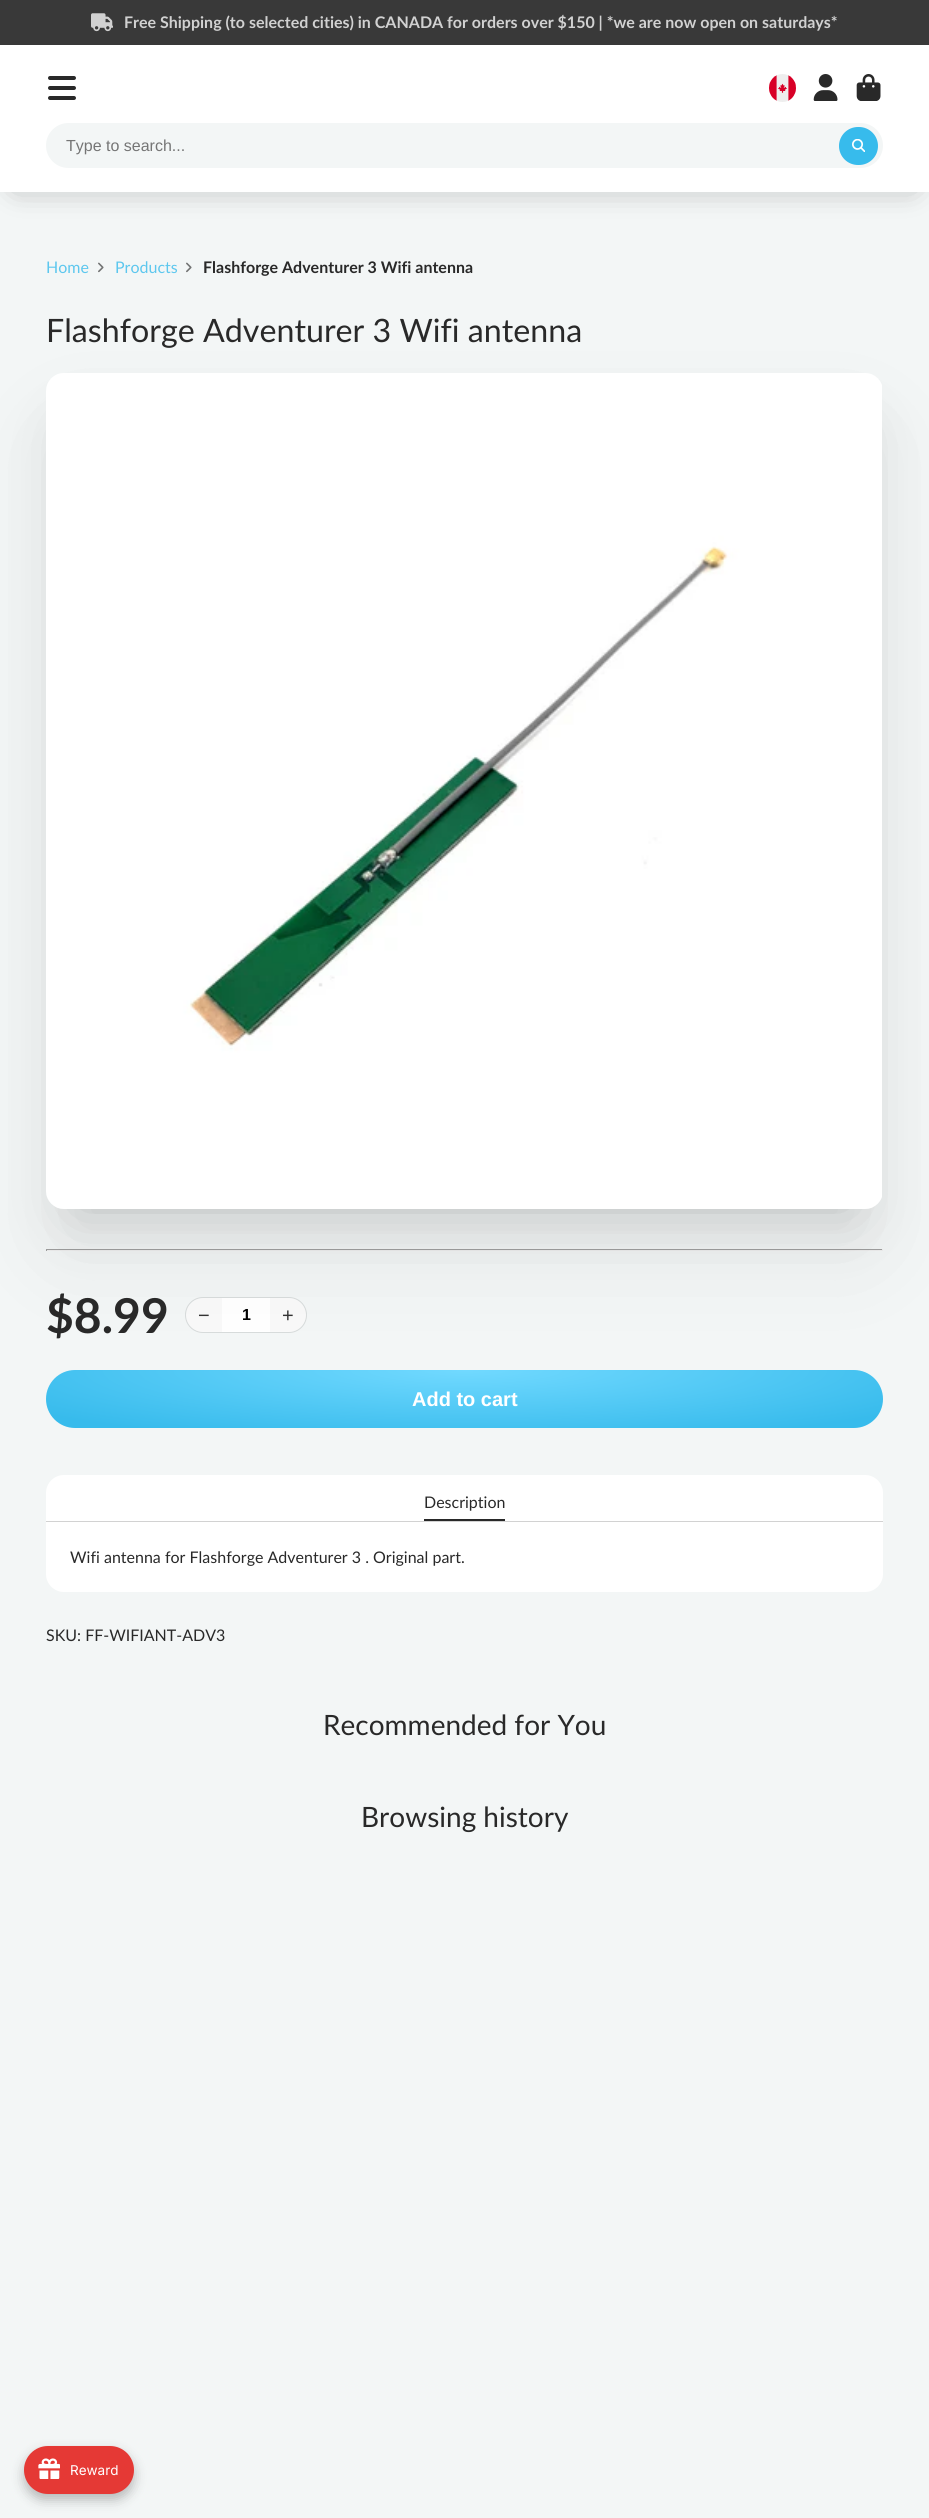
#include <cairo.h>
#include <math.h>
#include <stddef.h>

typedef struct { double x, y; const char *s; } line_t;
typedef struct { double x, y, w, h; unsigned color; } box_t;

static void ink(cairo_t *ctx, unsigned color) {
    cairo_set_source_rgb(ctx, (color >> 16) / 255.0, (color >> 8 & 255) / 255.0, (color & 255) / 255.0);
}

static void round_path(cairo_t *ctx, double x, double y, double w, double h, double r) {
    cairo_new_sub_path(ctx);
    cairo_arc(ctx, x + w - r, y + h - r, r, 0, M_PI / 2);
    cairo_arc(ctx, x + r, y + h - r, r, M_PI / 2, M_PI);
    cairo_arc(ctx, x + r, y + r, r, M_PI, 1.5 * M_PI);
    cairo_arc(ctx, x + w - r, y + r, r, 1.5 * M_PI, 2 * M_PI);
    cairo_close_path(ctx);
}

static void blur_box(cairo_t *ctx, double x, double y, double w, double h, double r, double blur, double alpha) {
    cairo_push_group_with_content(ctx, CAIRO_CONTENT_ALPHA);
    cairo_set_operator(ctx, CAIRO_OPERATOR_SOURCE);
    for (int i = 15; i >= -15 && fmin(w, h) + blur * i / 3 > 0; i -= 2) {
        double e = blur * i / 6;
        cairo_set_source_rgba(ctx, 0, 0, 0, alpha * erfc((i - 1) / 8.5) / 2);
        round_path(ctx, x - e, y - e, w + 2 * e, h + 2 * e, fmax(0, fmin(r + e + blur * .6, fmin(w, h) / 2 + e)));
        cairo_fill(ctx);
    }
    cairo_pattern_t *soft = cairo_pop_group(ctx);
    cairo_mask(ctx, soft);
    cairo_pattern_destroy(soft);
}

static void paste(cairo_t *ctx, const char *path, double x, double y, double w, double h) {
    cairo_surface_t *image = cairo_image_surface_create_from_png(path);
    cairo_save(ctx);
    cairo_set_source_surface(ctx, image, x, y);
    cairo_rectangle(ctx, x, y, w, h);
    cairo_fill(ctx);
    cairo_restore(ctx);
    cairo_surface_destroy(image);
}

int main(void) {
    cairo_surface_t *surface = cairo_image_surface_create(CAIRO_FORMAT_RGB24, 929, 2518);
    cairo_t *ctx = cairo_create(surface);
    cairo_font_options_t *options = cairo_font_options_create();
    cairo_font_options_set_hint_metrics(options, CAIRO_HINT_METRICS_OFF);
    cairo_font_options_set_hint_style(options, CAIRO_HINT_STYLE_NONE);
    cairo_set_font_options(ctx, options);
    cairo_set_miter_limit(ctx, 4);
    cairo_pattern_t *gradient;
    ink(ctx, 0xF3F6F6);
    cairo_paint(ctx);
    ink(ctx, 0x393939);
    cairo_rectangle(ctx, 0, 0, 929, 45);
    cairo_fill(ctx);
    paste(ctx, "media/1.png", 91, 13, 22, 19);
    cairo_select_font_face(ctx, "Lato", CAIRO_FONT_SLANT_NORMAL, CAIRO_FONT_WEIGHT_BOLD);
    cairo_set_font_size(ctx, 16);
    ink(ctx, 0xD1D1D1);
    cairo_move_to(ctx, 124, 28);
    cairo_show_text(ctx, "Free Shipping (to selected cities) in CANADA for orders over $150 | *we are now open on saturdays*");
    ink(ctx, 0x1C1C1C);
    blur_box(ctx, 16, 69, 897, 115, 0, 16, 0.3);
    blur_box(ctx, 24, 85, 881, 99, 0, 16, 0.1);
    ink(ctx, 0xFFFFFF);
    cairo_rectangle(ctx, 0, 45, 929, 147);
    cairo_fill(ctx);
    paste(ctx, "media/2.png", 48, 76, 28, 24);
    paste(ctx, "media/3.png", 769, 74, 27, 28);
    paste(ctx, "media/4.png", 813, 74, 25, 27);
    paste(ctx, "media/5.png", 856, 74, 25, 27);
    ink(ctx, 0xF3F6F6);
    round_path(ctx, 46, 123, 837, 45, 22.5);
    cairo_fill(ctx);
    cairo_select_font_face(ctx, "Liberation Sans", CAIRO_FONT_SLANT_NORMAL, CAIRO_FONT_WEIGHT_NORMAL);
    ink(ctx, 0x757575);
    cairo_move_to(ctx, 66, 151);
    cairo_show_text(ctx, "Type to search...");
    ink(ctx, 0x37BBEC);
    round_path(ctx, 839, 127, 39, 38, 19);
    cairo_fill(ctx);
    paste(ctx, "media/6.png", 852, 139, 13, 13);
    cairo_select_font_face(ctx, "Lato", CAIRO_FONT_SLANT_NORMAL, CAIRO_FONT_WEIGHT_NORMAL);
    ink(ctx, 0x5DC7EE);
    cairo_move_to(ctx, 46, 273);
    cairo_show_text(ctx, "Home");
    paste(ctx, "media/7.png", 98, 262, 6, 11);
    cairo_move_to(ctx, 115, 273);
    cairo_show_text(ctx, "Products");
    paste(ctx, "media/7.png", 186, 262, 6, 11);
    cairo_select_font_face(ctx, "Lato", CAIRO_FONT_SLANT_NORMAL, CAIRO_FONT_WEIGHT_BOLD);
    ink(ctx, 0x292929);
    cairo_move_to(ctx, 203, 273);
    cairo_show_text(ctx, "Flashforge Adventurer 3 Wifi antenna");
    cairo_select_font_face(ctx, "Lato", CAIRO_FONT_SLANT_NORMAL, CAIRO_FONT_WEIGHT_NORMAL);
    cairo_set_font_size(ctx, 32.2);
    cairo_move_to(ctx, 46, 342);
    cairo_show_text(ctx, "Flashforge Adventurer 3 Wifi antenna");
    {
        static const box_t items[] = {
            {46, 1249, 837, 1, 0x9F9F9F},
            {882, 1249, 1, 2, 0xEEEEEE},
            {46, 1250, 837, 1, 0xEEEEEE},
            {46, 1249, 1, 2, 0x9F9F9F},
        };
        for (size_t i = 0; i < sizeof items / sizeof *items; i++) {
            ink(ctx, items[i].color);
            cairo_rectangle(ctx, items[i].x, items[i].y, items[i].w, items[i].h);
            cairo_fill(ctx);
        }
    }
    ink(ctx, 0xF9F9F9);
    round_path(ctx, 185.5, 1297.5, 121, 35, 17.5);
    cairo_fill_preserve(ctx);
    ink(ctx, 0xD7DBDB);
    cairo_set_line_width(ctx, 1);
    cairo_stroke(ctx);
    ink(ctx, 0xFFFFFF);
    cairo_rectangle(ctx, 222, 1298, 48, 34);
    cairo_fill(ctx);
    ink(ctx, 0x1C1C1C);
    blur_box(ctx, 76, 433, 777, 776, 0, 30, 0.2);
    blur_box(ctx, 66, 443, 797, 796, 0, 50, 0.1);
    paste(ctx, "media/8.png", 46, 373, 836, 836);
    cairo_select_font_face(ctx, "Lato", CAIRO_FONT_SLANT_NORMAL, CAIRO_FONT_WEIGHT_BOLD);
    cairo_set_font_size(ctx, 48);
    ink(ctx, 0x292929);
    cairo_move_to(ctx, 46, 1333);
    cairo_show_text(ctx, "$8.99");
    cairo_select_font_face(ctx, "Liberation Sans", CAIRO_FONT_SLANT_NORMAL, CAIRO_FONT_WEIGHT_NORMAL);
    cairo_set_font_size(ctx, 20);
    ink(ctx, 0x333333);
    cairo_move_to(ctx, 198, 1322);
    cairo_show_text(ctx, "−");
    cairo_select_font_face(ctx, "Liberation Sans", CAIRO_FONT_SLANT_NORMAL, CAIRO_FONT_WEIGHT_BOLD);
    cairo_set_font_size(ctx, 16);
    ink(ctx, 0x000000);
    cairo_move_to(ctx, 242, 1320);
    cairo_show_text(ctx, "1");
    cairo_select_font_face(ctx, "Liberation Sans", CAIRO_FONT_SLANT_NORMAL, CAIRO_FONT_WEIGHT_NORMAL);
    cairo_set_font_size(ctx, 20);
    ink(ctx, 0x333333);
    cairo_move_to(ctx, 282, 1322);
    cairo_show_text(ctx, "+");
    gradient = cairo_pattern_create_radial(0, 0, 0, 0, 0, 1);
    cairo_pattern_set_matrix(gradient, &(cairo_matrix_t){1.0 / 592, 0, 0, 1.0 / 82, -1.0 * 465 / 592, -1.0 * 1370 / 82});
    cairo_pattern_add_color_stop_rgba(gradient, 0, 0.443, 0.851, 1, 1);
    cairo_pattern_add_color_stop_rgba(gradient, 0.9, 0.216, 0.733, 0.925, 1);
    cairo_set_source(ctx, gradient);
    cairo_pattern_destroy(gradient);
    round_path(ctx, 46, 1370, 837, 58, 29);
    cairo_fill(ctx);
    cairo_select_font_face(ctx, "Liberation Sans", CAIRO_FONT_SLANT_NORMAL, CAIRO_FONT_WEIGHT_BOLD);
    ink(ctx, 0xFFFFFF);
    cairo_move_to(ctx, 412, 1406);
    cairo_show_text(ctx, "Add to cart");
    round_path(ctx, 46, 1475, 837, 117, 18);
    cairo_fill(ctx);
    ink(ctx, 0xD2D2D2);
    cairo_rectangle(ctx, 46, 1521, 837, 1);
    cairo_fill(ctx);
    ink(ctx, 0x292929);
    cairo_rectangle(ctx, 424, 1519, 81, 2);
    cairo_fill(ctx);
    cairo_select_font_face(ctx, "Lato", CAIRO_FONT_SLANT_NORMAL, CAIRO_FONT_WEIGHT_NORMAL);
    cairo_set_font_size(ctx, 16);
    {
        static const line_t items[] = {
            {424, 1508, "Description"},
            {70, 1563, "Wifi antenna for Flashforge Adventurer 3 . Original part."},
            {46, 1641, "SKU: FF-WIFIANT-ADV3"},
        };
        for (size_t i = 0; i < sizeof items / sizeof *items; i++) {
            cairo_move_to(ctx, items[i].x, items[i].y);
            cairo_show_text(ctx, items[i].s);
        }
    }
    cairo_set_font_size(ctx, 28);
    cairo_move_to(ctx, 323, 1735);
    cairo_show_text(ctx, "Recommended for You");
    cairo_move_to(ctx, 361, 1827);
    cairo_show_text(ctx, "Browsing history");
    ink(ctx, 0x000000);
    blur_box(ctx, 24, 2452, 110, 48, 24, 6, 0.25);
    ink(ctx, 0xE53935);
    round_path(ctx, 24, 2446, 110, 48, 24);
    cairo_fill(ctx);
    paste(ctx, "media/9.png", 38, 2458, 22, 21);
    cairo_select_font_face(ctx, "Inter", CAIRO_FONT_SLANT_NORMAL, CAIRO_FONT_WEIGHT_NORMAL);
    cairo_set_font_size(ctx, 13.5);
    ink(ctx, 0xFFFFFF);
    cairo_move_to(ctx, 70, 2475);
    cairo_show_text(ctx, "Reward");
    cairo_surface_write_to_png(surface, "image.png");
    cairo_font_options_destroy(options);
    cairo_destroy(ctx);
    cairo_surface_destroy(surface);
    return 0;
}
